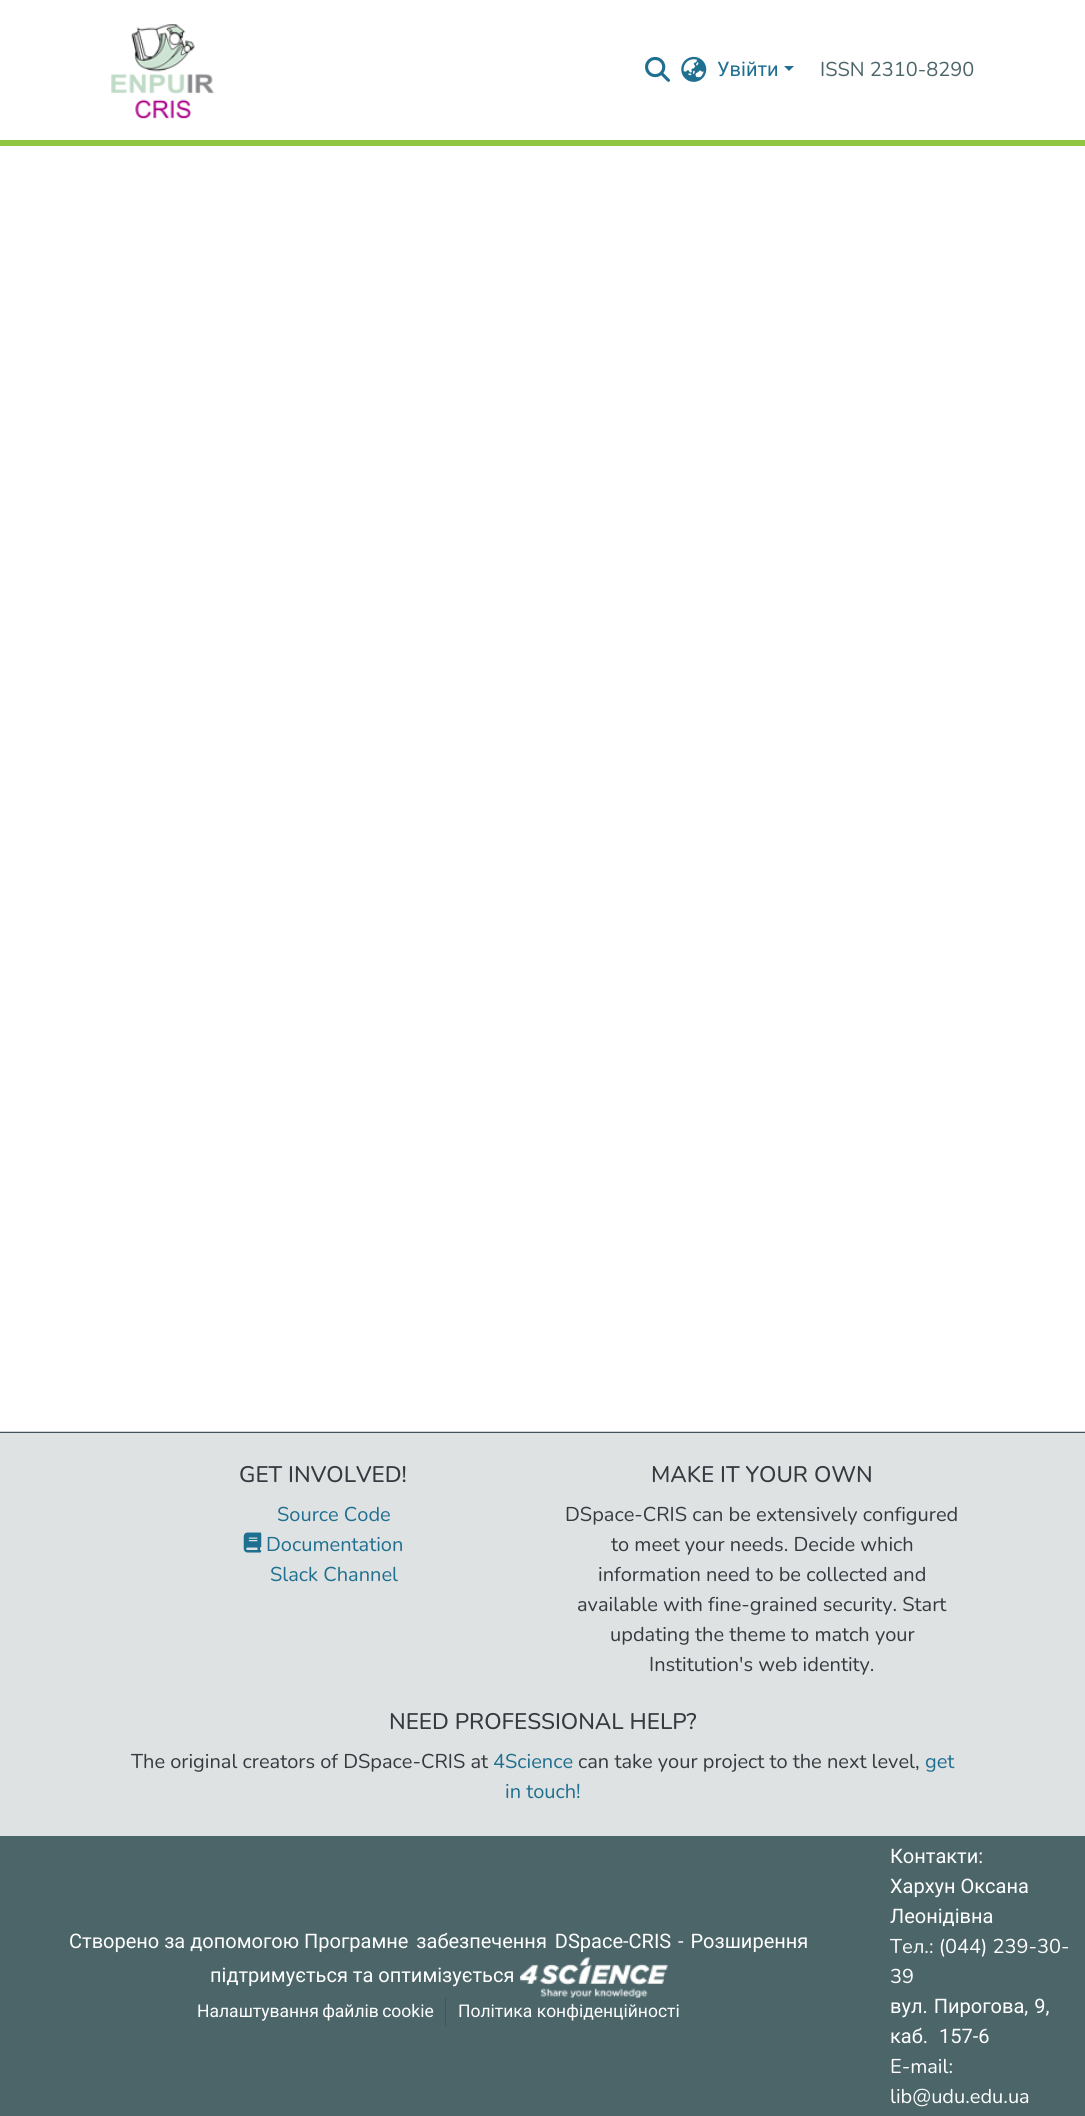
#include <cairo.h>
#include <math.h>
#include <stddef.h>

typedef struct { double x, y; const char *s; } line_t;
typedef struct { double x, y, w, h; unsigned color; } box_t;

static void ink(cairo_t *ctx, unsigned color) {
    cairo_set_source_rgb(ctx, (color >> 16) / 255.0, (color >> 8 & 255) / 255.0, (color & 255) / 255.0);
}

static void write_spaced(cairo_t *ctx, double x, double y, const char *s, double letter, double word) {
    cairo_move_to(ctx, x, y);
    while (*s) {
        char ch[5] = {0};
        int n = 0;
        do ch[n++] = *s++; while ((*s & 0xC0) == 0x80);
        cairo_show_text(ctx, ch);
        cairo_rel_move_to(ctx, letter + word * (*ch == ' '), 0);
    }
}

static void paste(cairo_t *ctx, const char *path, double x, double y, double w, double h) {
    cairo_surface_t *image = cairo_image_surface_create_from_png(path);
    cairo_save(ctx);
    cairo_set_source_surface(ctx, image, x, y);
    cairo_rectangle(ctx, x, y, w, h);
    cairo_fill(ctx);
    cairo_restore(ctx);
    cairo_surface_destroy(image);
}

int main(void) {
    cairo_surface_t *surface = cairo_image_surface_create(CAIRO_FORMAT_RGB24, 1085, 2116);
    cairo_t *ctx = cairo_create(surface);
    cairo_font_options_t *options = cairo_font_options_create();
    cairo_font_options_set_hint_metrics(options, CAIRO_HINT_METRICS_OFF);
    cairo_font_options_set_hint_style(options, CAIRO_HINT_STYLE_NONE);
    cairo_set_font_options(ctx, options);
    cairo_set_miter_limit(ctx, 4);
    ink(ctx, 0xFFFFFF);
    cairo_paint(ctx);
    ink(ctx, 0x92C642);
    cairo_rectangle(ctx, 0, 140, 1085, 6);
    cairo_fill(ctx);
    paste(ctx, "media/1.png", 111, 24, 103, 95);
    paste(ctx, "media/2.png", 645, 56, 25, 26);
    paste(ctx, "media/3.png", 681, 56, 26, 26);
    cairo_select_font_face(ctx, "Roboto", CAIRO_FONT_SLANT_NORMAL, CAIRO_FONT_WEIGHT_NORMAL);
    cairo_set_font_size(ctx, 20);
    ink(ctx, 0x1E6F90);
    cairo_move_to(ctx, 717, 76);
    cairo_show_text(ctx, "Увійти");
    cairo_new_path(ctx);
    cairo_move_to(ctx, 784, 66);
    cairo_line_to(ctx, 794, 66);
    cairo_line_to(ctx, 789, 71);
    cairo_close_path(ctx);
    cairo_fill(ctx);
    cairo_select_font_face(ctx, "Nunito", CAIRO_FONT_SLANT_NORMAL, CAIRO_FONT_WEIGHT_NORMAL);
    ink(ctx, 0x4B6569);
    cairo_move_to(ctx, 820, 76);
    cairo_show_text(ctx, "ISSN 2310-8290");
    {
        static const box_t items[] = {
            {0, 1432, 1085, 1, 0x43515F},
            {0, 1431, 1085, 1, 0xCED4DA},
            {0, 1433, 1085, 403, 0xDFE2E2},
        };
        for (size_t i = 0; i < sizeof items / sizeof *items; i++) {
            ink(ctx, items[i].color);
            cairo_rectangle(ctx, items[i].x, items[i].y, items[i].w, items[i].h);
            cairo_fill(ctx);
        }
    }
    cairo_select_font_face(ctx, "Nunito Medium", CAIRO_FONT_SLANT_NORMAL, CAIRO_FONT_WEIGHT_NORMAL);
    cairo_set_font_size(ctx, 22.5);
    ink(ctx, 0x343A40);
    cairo_move_to(ctx, 239, 1482);
    cairo_show_text(ctx, "GET INVOLVED!");
    cairo_select_font_face(ctx, "Nunito", CAIRO_FONT_SLANT_NORMAL, CAIRO_FONT_WEIGHT_NORMAL);
    cairo_set_font_size(ctx, 20);
    ink(ctx, 0x1E6F90);
    cairo_move_to(ctx, 277, 1521);
    cairo_show_text(ctx, "Source Code");
    paste(ctx, "media/4.png", 243, 1532, 19, 21);
    cairo_move_to(ctx, 266, 1551);
    cairo_show_text(ctx, "Documentation");
    cairo_move_to(ctx, 270, 1581);
    cairo_show_text(ctx, "Slack Channel");
    cairo_select_font_face(ctx, "Nunito Medium", CAIRO_FONT_SLANT_NORMAL, CAIRO_FONT_WEIGHT_NORMAL);
    cairo_set_font_size(ctx, 22.5);
    ink(ctx, 0x343A40);
    cairo_move_to(ctx, 651, 1482);
    cairo_show_text(ctx, "MAKE IT YOUR OWN");
    cairo_select_font_face(ctx, "Nunito", CAIRO_FONT_SLANT_NORMAL, CAIRO_FONT_WEIGHT_NORMAL);
    cairo_set_font_size(ctx, 20);
    {
        static const line_t items[] = {
            {565, 1521, "DSpace-CRIS can be extensively configured"},
            {611, 1551, "to meet your needs. Decide which"},
            {598, 1581, "information need to be collected and"},
            {577, 1611, "available with fine-grained security. Start"},
            {610, 1641, "updating the theme to match your"},
            {649, 1671, "Institution's web identity."},
        };
        for (size_t i = 0; i < sizeof items / sizeof *items; i++) {
            cairo_move_to(ctx, items[i].x, items[i].y);
            cairo_show_text(ctx, items[i].s);
        }
    }
    cairo_select_font_face(ctx, "Nunito Medium", CAIRO_FONT_SLANT_NORMAL, CAIRO_FONT_WEIGHT_NORMAL);
    cairo_set_font_size(ctx, 22.5);
    cairo_move_to(ctx, 389, 1729);
    cairo_show_text(ctx, "NEED PROFESSIONAL HELP?");
    cairo_select_font_face(ctx, "Nunito", CAIRO_FONT_SLANT_NORMAL, CAIRO_FONT_WEIGHT_NORMAL);
    cairo_set_font_size(ctx, 20);
    cairo_move_to(ctx, 131, 1768);
    cairo_show_text(ctx, "The original creators of DSpace-CRIS at");
    ink(ctx, 0x1E6F90);
    cairo_move_to(ctx, 493, 1768);
    cairo_show_text(ctx, "4Science");
    ink(ctx, 0x343A40);
    cairo_move_to(ctx, 578, 1768);
    cairo_show_text(ctx, "can take your project to the next level,");
    ink(ctx, 0x1E6F90);
    cairo_move_to(ctx, 925, 1768);
    cairo_show_text(ctx, "get");
    cairo_move_to(ctx, 505, 1798);
    cairo_show_text(ctx, "in touch!");
    ink(ctx, 0x4B6569);
    cairo_rectangle(ctx, 0, 1836, 1085, 280);
    cairo_fill(ctx);
    cairo_select_font_face(ctx, "Roboto", CAIRO_FONT_SLANT_NORMAL, CAIRO_FONT_WEIGHT_NORMAL);
    ink(ctx, 0xFFFFFF);
    cairo_move_to(ctx, 69, 1948);
    cairo_show_text(ctx, "Створено за допомогою");
    write_spaced(ctx, 304, 1948, "Програмне забезпечення DSpace-CRIS", 0, 3);
    write_spaced(ctx, 678, 1948, "- Розширення", 0, 2);
    cairo_move_to(ctx, 210, 1982);
    cairo_show_text(ctx, "підтримується та оптимізується");
    paste(ctx, "media/5.png", 520, 1957, 148, 41);
    cairo_set_font_size(ctx, 17.5);
    write_spaced(ctx, 197, 2017, "Налаштування файлів cookie", 0, -1);
    ink(ctx, 0x495057);
    cairo_rectangle(ctx, 445, 1998, 1, 28);
    cairo_fill(ctx);
    ink(ctx, 0xFFFFFF);
    cairo_move_to(ctx, 458, 2017);
    cairo_show_text(ctx, "Політика конфіденційності");
    cairo_set_font_size(ctx, 20);
    {
        static const line_t items[] = {
            {890, 1863, "Контакти:"},
            {890, 1893, "Хархун Оксана"},
            {890, 1923, "Леонідівна"},
        };
        for (size_t i = 0; i < sizeof items / sizeof *items; i++) {
            cairo_move_to(ctx, items[i].x, items[i].y);
            cairo_show_text(ctx, items[i].s);
        }
    }
    cairo_select_font_face(ctx, "Nunito", CAIRO_FONT_SLANT_NORMAL, CAIRO_FONT_WEIGHT_NORMAL);
    cairo_move_to(ctx, 890, 1953);
    cairo_show_text(ctx, "Тел.: (044) 239-30-");
    cairo_move_to(ctx, 890, 1983);
    cairo_show_text(ctx, "39");
    cairo_select_font_face(ctx, "Roboto", CAIRO_FONT_SLANT_NORMAL, CAIRO_FONT_WEIGHT_NORMAL);
    write_spaced(ctx, 890, 2013, "вул. Пирогова, 9,", 0, 1);
    write_spaced(ctx, 890, 2043, "каб. 157-6", 0, 6);
    cairo_select_font_face(ctx, "Nunito", CAIRO_FONT_SLANT_NORMAL, CAIRO_FONT_WEIGHT_NORMAL);
    cairo_move_to(ctx, 890, 2073);
    cairo_show_text(ctx, "E-mail:");
    cairo_move_to(ctx, 890, 2103);
    cairo_show_text(ctx, "lib@udu.edu.ua");
    cairo_surface_write_to_png(surface, "image.png");
    cairo_font_options_destroy(options);
    cairo_destroy(ctx);
    cairo_surface_destroy(surface);
    return 0;
}
